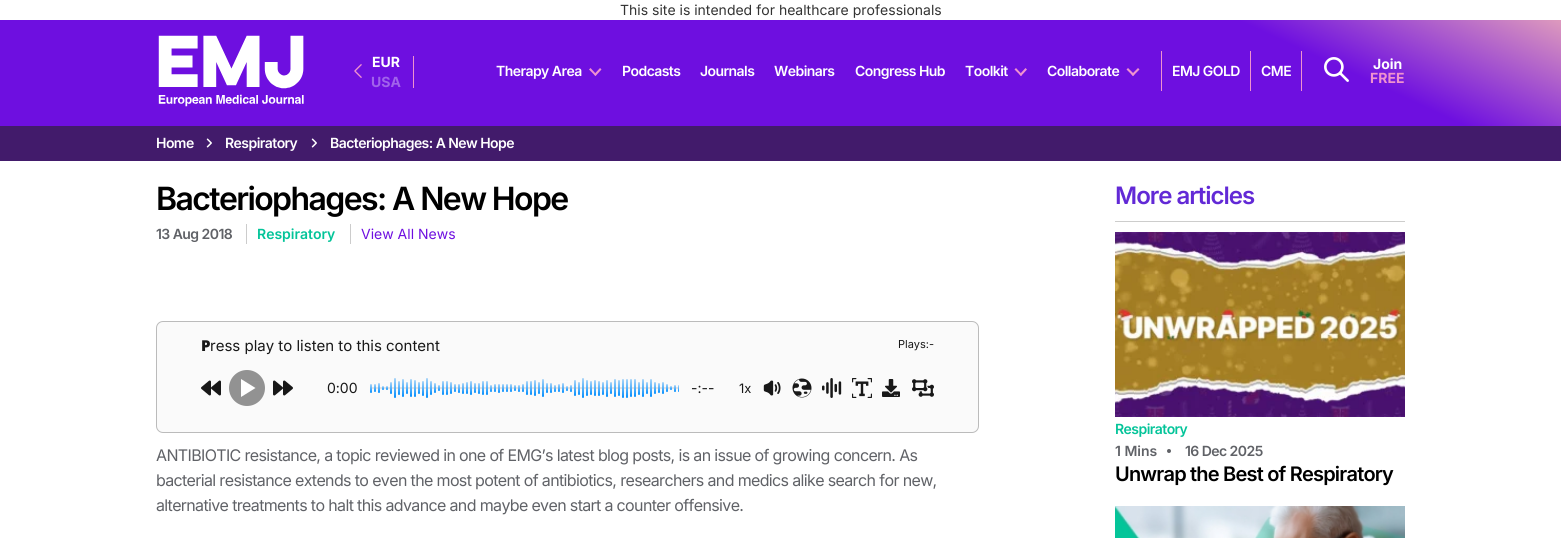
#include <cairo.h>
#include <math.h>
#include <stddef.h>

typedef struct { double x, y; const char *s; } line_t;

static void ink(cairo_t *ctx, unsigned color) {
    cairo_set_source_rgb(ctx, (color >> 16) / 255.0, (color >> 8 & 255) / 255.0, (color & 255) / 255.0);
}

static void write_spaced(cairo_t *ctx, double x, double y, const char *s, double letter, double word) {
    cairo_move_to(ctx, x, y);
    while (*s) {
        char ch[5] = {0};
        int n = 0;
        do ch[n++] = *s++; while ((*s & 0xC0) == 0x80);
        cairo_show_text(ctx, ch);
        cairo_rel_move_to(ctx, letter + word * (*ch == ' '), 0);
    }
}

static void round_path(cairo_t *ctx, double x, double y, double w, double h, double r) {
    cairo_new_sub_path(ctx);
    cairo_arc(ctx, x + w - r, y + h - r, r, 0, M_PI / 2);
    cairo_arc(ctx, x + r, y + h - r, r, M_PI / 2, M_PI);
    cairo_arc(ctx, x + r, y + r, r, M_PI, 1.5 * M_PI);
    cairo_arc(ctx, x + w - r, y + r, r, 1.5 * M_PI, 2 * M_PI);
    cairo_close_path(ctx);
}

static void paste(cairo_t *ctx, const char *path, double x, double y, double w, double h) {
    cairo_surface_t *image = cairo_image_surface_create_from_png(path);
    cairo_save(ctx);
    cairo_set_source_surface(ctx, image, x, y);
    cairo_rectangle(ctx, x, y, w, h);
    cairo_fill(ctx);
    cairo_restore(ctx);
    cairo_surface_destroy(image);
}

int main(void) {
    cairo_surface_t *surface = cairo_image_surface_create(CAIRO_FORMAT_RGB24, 1561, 538);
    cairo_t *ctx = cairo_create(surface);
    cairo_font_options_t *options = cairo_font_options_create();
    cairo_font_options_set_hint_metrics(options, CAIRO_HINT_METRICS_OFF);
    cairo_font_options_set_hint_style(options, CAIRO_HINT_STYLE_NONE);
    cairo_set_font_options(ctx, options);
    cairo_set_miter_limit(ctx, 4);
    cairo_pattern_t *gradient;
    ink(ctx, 0xFFFFFF);
    cairo_paint(ctx);
    cairo_select_font_face(ctx, "Inter", CAIRO_FONT_SLANT_NORMAL, CAIRO_FONT_WEIGHT_NORMAL);
    cairo_set_font_size(ctx, 14);
    ink(ctx, 0x333333);
    cairo_move_to(ctx, 620, 15);
    cairo_show_text(ctx, "This site is intended for healthcare professionals");
    gradient = cairo_pattern_create_linear(617, 414, 944, -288);
    cairo_pattern_add_color_stop_rgba(gradient, 0.8, 0.431, 0.059, 0.878, 1);
    cairo_pattern_add_color_stop_rgba(gradient, 1, 0.929, 0.678, 0.722, 1);
    cairo_set_source(ctx, gradient);
    cairo_pattern_destroy(gradient);
    cairo_rectangle(ctx, 0, 20, 1561, 106);
    cairo_fill(ctx);
    paste(ctx, "media/1.png", 158, 35, 146, 72);
    ink(ctx, 0xF092CE);
    cairo_rectangle(ctx, 413, 56, 1, 32);
    cairo_fill(ctx);
    cairo_select_font_face(ctx, "Inter", CAIRO_FONT_SLANT_NORMAL, CAIRO_FONT_WEIGHT_BOLD);
    ink(ctx, 0xFFFFFF);
    cairo_move_to(ctx, 372, 67);
    cairo_show_text(ctx, "EUR");
    paste(ctx, "media/2.png", 354, 64, 8, 14);
    ink(ctx, 0xA163EB);
    cairo_move_to(ctx, 371, 87);
    cairo_show_text(ctx, "USA");
    cairo_select_font_face(ctx, "Inter SemiBold", CAIRO_FONT_SLANT_NORMAL, CAIRO_FONT_WEIGHT_NORMAL);
    ink(ctx, 0xFFFFFF);
    write_spaced(ctx, 496, 76, "Therapy Area", -0.55, 0);
    ink(ctx, 0xF092CE);
    cairo_new_path(ctx);
    cairo_move_to(ctx, 595.5, 76);
    cairo_line_to(ctx, 589, 69.5);
    cairo_line_to(ctx, 590.5, 68);
    cairo_line_to(ctx, 596.5, 74.5);
    cairo_close_path(ctx);
    cairo_fill(ctx);
    cairo_new_path(ctx);
    cairo_move_to(ctx, 595.5, 76);
    cairo_line_to(ctx, 594, 74.5);
    cairo_line_to(ctx, 600, 68);
    cairo_line_to(ctx, 601.5, 69.5);
    cairo_close_path(ctx);
    cairo_fill(ctx);
    ink(ctx, 0xFFFFFF);
    {
        static const line_t items[] = {
            {622, 76, "Podcasts"},
            {700, 76, "Journals"},
            {774, 76, "Webinars"},
            {855, 76, "Congress Hub"},
            {965, 76, "Toolkit"},
        };
        for (size_t i = 0; i < sizeof items / sizeof *items; i++) {
            write_spaced(ctx, items[i].x, items[i].y, items[i].s, -0.55, 0);
        }
    }
    ink(ctx, 0xF092CE);
    cairo_new_path(ctx);
    cairo_move_to(ctx, 1021, 76);
    cairo_line_to(ctx, 1014.5, 69.5);
    cairo_line_to(ctx, 1016, 68);
    cairo_line_to(ctx, 1022, 74.5);
    cairo_close_path(ctx);
    cairo_fill(ctx);
    cairo_new_path(ctx);
    cairo_move_to(ctx, 1021, 76);
    cairo_line_to(ctx, 1019.5, 74.5);
    cairo_line_to(ctx, 1025.5, 68);
    cairo_line_to(ctx, 1027, 69.5);
    cairo_close_path(ctx);
    cairo_fill(ctx);
    ink(ctx, 0xFFFFFF);
    write_spaced(ctx, 1047, 76, "Collaborate", -0.55, 0);
    ink(ctx, 0xF092CE);
    cairo_new_path(ctx);
    cairo_move_to(ctx, 1133, 76);
    cairo_line_to(ctx, 1126.5, 69.5);
    cairo_line_to(ctx, 1128, 68);
    cairo_line_to(ctx, 1134.5, 74.5);
    cairo_close_path(ctx);
    cairo_fill(ctx);
    cairo_new_path(ctx);
    cairo_move_to(ctx, 1133, 76);
    cairo_line_to(ctx, 1131.5, 74.5);
    cairo_line_to(ctx, 1138, 68);
    cairo_line_to(ctx, 1139.5, 69.5);
    cairo_close_path(ctx);
    cairo_fill(ctx);
    cairo_rectangle(ctx, 1250, 51, 1, 40);
    cairo_fill(ctx);
    cairo_rectangle(ctx, 1161, 51, 1, 40);
    cairo_fill(ctx);
    ink(ctx, 0xFFFFFF);
    write_spaced(ctx, 1172, 76, "EMJ GOLD", -0.55, 0);
    ink(ctx, 0xF092CE);
    cairo_rectangle(ctx, 1301, 51, 1, 40);
    cairo_fill(ctx);
    ink(ctx, 0xFFFFFF);
    write_spaced(ctx, 1261, 76, "CME", -0.55, 0);
    paste(ctx, "media/3.png", 1324, 57, 25, 25);
    cairo_select_font_face(ctx, "Inter", CAIRO_FONT_SLANT_NORMAL, CAIRO_FONT_WEIGHT_BOLD);
    cairo_move_to(ctx, 1373, 69);
    cairo_show_text(ctx, "Join");
    ink(ctx, 0xF092CE);
    cairo_move_to(ctx, 1370, 83);
    cairo_show_text(ctx, "FREE");
    ink(ctx, 0x421B6B);
    cairo_rectangle(ctx, 0, 126, 1561, 35);
    cairo_fill(ctx);
    cairo_select_font_face(ctx, "Inter SemiBold", CAIRO_FONT_SLANT_NORMAL, CAIRO_FONT_WEIGHT_NORMAL);
    ink(ctx, 0xFFFFFF);
    write_spaced(ctx, 156, 148, "Home", -0.55, 0);
    paste(ctx, "media/4.png", 206, 138, 6, 10);
    write_spaced(ctx, 225, 148, "Respiratory", -0.55, 0);
    paste(ctx, "media/4.png", 311, 138, 6, 10);
    write_spaced(ctx, 330, 148, "Bacteriophages: A New Hope", -0.55, 0);
    cairo_set_font_size(ctx, 32);
    ink(ctx, 0x000000);
    write_spaced(ctx, 156, 210, "Bacteriophages: A New Hope", -1.6, 0);
    cairo_set_font_size(ctx, 14);
    ink(ctx, 0x606267);
    write_spaced(ctx, 156, 239, "13 Aug 2018", -0.55, 0);
    ink(ctx, 0xCCCCCC);
    cairo_rectangle(ctx, 246, 224, 1, 20);
    cairo_fill(ctx);
    ink(ctx, 0x03C499);
    cairo_move_to(ctx, 257, 239);
    cairo_show_text(ctx, "Respiratory");
    ink(ctx, 0xCCCCCC);
    cairo_rectangle(ctx, 350, 224, 1, 20);
    cairo_fill(ctx);
    cairo_select_font_face(ctx, "Inter", CAIRO_FONT_SLANT_NORMAL, CAIRO_FONT_WEIGHT_NORMAL);
    ink(ctx, 0x6E0FE0);
    cairo_move_to(ctx, 361, 239);
    cairo_show_text(ctx, "View All News");
    ink(ctx, 0xFAFAFA);
    round_path(ctx, 156.5, 321.5, 822, 111, 6.5);
    cairo_fill_preserve(ctx);
    ink(ctx, 0xBBBBBB);
    cairo_set_line_width(ctx, 1);
    cairo_stroke(ctx);
    cairo_select_font_face(ctx, "Noto Sans Black", CAIRO_FONT_SLANT_NORMAL, CAIRO_FONT_WEIGHT_NORMAL);
    cairo_set_font_size(ctx, 15);
    ink(ctx, 0x181818);
    cairo_move_to(ctx, 201, 351);
    cairo_show_text(ctx, "P");
    cairo_select_font_face(ctx, "Inter", CAIRO_FONT_SLANT_NORMAL, CAIRO_FONT_WEIGHT_NORMAL);
    cairo_move_to(ctx, 210, 351);
    cairo_show_text(ctx, "ress play to listen to this content");
    cairo_set_font_size(ctx, 11);
    cairo_move_to(ctx, 898, 348);
    cairo_show_text(ctx, "Plays:-");
    paste(ctx, "media/5.png", 201, 380, 20, 16);
    ink(ctx, 0x929292);
    cairo_arc(ctx, 247, 388, 18, 0, 2 * M_PI);
    cairo_fill(ctx);
    ink(ctx, 0xFFFFFF);
    cairo_new_path(ctx);
    cairo_move_to(ctx, 241, 379);
    cairo_line_to(ctx, 255.5, 388);
    cairo_line_to(ctx, 241, 397);
    cairo_close_path(ctx);
    cairo_fill(ctx);
    paste(ctx, "media/6.png", 273, 380, 20, 16);
    cairo_set_font_size(ctx, 14);
    ink(ctx, 0x181818);
    cairo_move_to(ctx, 327, 393);
    cairo_show_text(ctx, "0:00");
    ink(ctx, 0xE4E3E3);
    cairo_rectangle(ctx, 370, 387, 309, 2);
    cairo_fill(ctx);
    gradient = cairo_pattern_create_linear(371, 384, 371, 393);
    cairo_pattern_add_color_stop_rgba(gradient, 0, 0.667, 0.835, 0.969, 1);
    cairo_pattern_add_color_stop_rgba(gradient, 1, 0.016, 0.561, 0.996, 1);
    cairo_set_source(ctx, gradient);
    cairo_pattern_destroy(gradient);
    round_path(ctx, 370, 384, 2, 9, 1);
    cairo_fill(ctx);
    gradient = cairo_pattern_create_linear(375, 384, 375, 392);
    cairo_pattern_add_color_stop_rgba(gradient, 0, 0.667, 0.835, 0.969, 1);
    cairo_pattern_add_color_stop_rgba(gradient, 1, 0.016, 0.561, 0.996, 1);
    cairo_set_source(ctx, gradient);
    cairo_pattern_destroy(gradient);
    round_path(ctx, 374, 384, 2, 8, 1);
    cairo_fill(ctx);
    gradient = cairo_pattern_create_linear(379, 383, 379, 393);
    cairo_pattern_add_color_stop_rgba(gradient, 0, 0.667, 0.835, 0.969, 1);
    cairo_pattern_add_color_stop_rgba(gradient, 1, 0.016, 0.561, 0.996, 1);
    cairo_set_source(ctx, gradient);
    cairo_pattern_destroy(gradient);
    round_path(ctx, 378, 383, 2, 10, 1);
    cairo_fill(ctx);
    gradient = cairo_pattern_create_linear(383, 386, 383, 390);
    cairo_pattern_add_color_stop_rgba(gradient, 0, 0.667, 0.835, 0.969, 1);
    cairo_pattern_add_color_stop_rgba(gradient, 1, 0.016, 0.561, 0.996, 1);
    cairo_set_source(ctx, gradient);
    cairo_pattern_destroy(gradient);
    round_path(ctx, 382, 386, 2, 4, 1);
    cairo_fill(ctx);
    gradient = cairo_pattern_create_linear(387, 386, 387, 390);
    cairo_pattern_add_color_stop_rgba(gradient, 0, 0.667, 0.835, 0.969, 1);
    cairo_pattern_add_color_stop_rgba(gradient, 1, 0.016, 0.561, 0.996, 1);
    cairo_set_source(ctx, gradient);
    cairo_pattern_destroy(gradient);
    round_path(ctx, 386, 386, 2, 4, 1);
    cairo_fill(ctx);
    gradient = cairo_pattern_create_linear(391, 382, 391, 394);
    cairo_pattern_add_color_stop_rgba(gradient, 0, 0.667, 0.835, 0.969, 1);
    cairo_pattern_add_color_stop_rgba(gradient, 1, 0.016, 0.561, 0.996, 1);
    cairo_set_source(ctx, gradient);
    cairo_pattern_destroy(gradient);
    round_path(ctx, 390, 382, 2, 12, 1);
    cairo_fill(ctx);
    gradient = cairo_pattern_create_linear(395, 378, 395, 398);
    cairo_pattern_add_color_stop_rgba(gradient, 0, 0.667, 0.835, 0.969, 1);
    cairo_pattern_add_color_stop_rgba(gradient, 1, 0.016, 0.561, 0.996, 1);
    cairo_set_source(ctx, gradient);
    cairo_pattern_destroy(gradient);
    round_path(ctx, 394, 378, 2, 20, 1);
    cairo_fill(ctx);
    gradient = cairo_pattern_create_linear(399, 381, 399, 395);
    cairo_pattern_add_color_stop_rgba(gradient, 0, 0.667, 0.835, 0.969, 1);
    cairo_pattern_add_color_stop_rgba(gradient, 1, 0.016, 0.561, 0.996, 1);
    cairo_set_source(ctx, gradient);
    cairo_pattern_destroy(gradient);
    round_path(ctx, 398, 381, 2, 14, 1);
    cairo_fill(ctx);
    gradient = cairo_pattern_create_linear(403, 379, 403, 397);
    cairo_pattern_add_color_stop_rgba(gradient, 0, 0.667, 0.835, 0.969, 1);
    cairo_pattern_add_color_stop_rgba(gradient, 1, 0.016, 0.561, 0.996, 1);
    cairo_set_source(ctx, gradient);
    cairo_pattern_destroy(gradient);
    round_path(ctx, 402, 379, 2, 18, 1);
    cairo_fill(ctx);
    gradient = cairo_pattern_create_linear(407, 382, 407, 394);
    cairo_pattern_add_color_stop_rgba(gradient, 0, 0.667, 0.835, 0.969, 1);
    cairo_pattern_add_color_stop_rgba(gradient, 1, 0.016, 0.561, 0.996, 1);
    cairo_set_source(ctx, gradient);
    cairo_pattern_destroy(gradient);
    round_path(ctx, 406, 382, 2, 12, 1);
    cairo_fill(ctx);
    gradient = cairo_pattern_create_linear(411, 379, 411, 397);
    cairo_pattern_add_color_stop_rgba(gradient, 0, 0.667, 0.835, 0.969, 1);
    cairo_pattern_add_color_stop_rgba(gradient, 1, 0.016, 0.561, 0.996, 1);
    cairo_set_source(ctx, gradient);
    cairo_pattern_destroy(gradient);
    round_path(ctx, 410, 379, 2, 18, 1);
    cairo_fill(ctx);
    gradient = cairo_pattern_create_linear(415, 380, 415, 397);
    cairo_pattern_add_color_stop_rgba(gradient, 0, 0.667, 0.835, 0.969, 1);
    cairo_pattern_add_color_stop_rgba(gradient, 1, 0.016, 0.561, 0.996, 1);
    cairo_set_source(ctx, gradient);
    cairo_pattern_destroy(gradient);
    round_path(ctx, 414, 380, 2, 17, 1);
    cairo_fill(ctx);
    gradient = cairo_pattern_create_linear(419, 382, 419, 394);
    cairo_pattern_add_color_stop_rgba(gradient, 0, 0.667, 0.835, 0.969, 1);
    cairo_pattern_add_color_stop_rgba(gradient, 1, 0.016, 0.561, 0.996, 1);
    cairo_set_source(ctx, gradient);
    cairo_pattern_destroy(gradient);
    round_path(ctx, 418, 382, 2, 12, 1);
    cairo_fill(ctx);
    gradient = cairo_pattern_create_linear(423, 381, 423, 396);
    cairo_pattern_add_color_stop_rgba(gradient, 0, 0.667, 0.835, 0.969, 1);
    cairo_pattern_add_color_stop_rgba(gradient, 1, 0.016, 0.561, 0.996, 1);
    cairo_set_source(ctx, gradient);
    cairo_pattern_destroy(gradient);
    round_path(ctx, 422, 381, 2, 15, 1);
    cairo_fill(ctx);
    gradient = cairo_pattern_create_linear(427, 378, 427, 398);
    cairo_pattern_add_color_stop_rgba(gradient, 0, 0.667, 0.835, 0.969, 1);
    cairo_pattern_add_color_stop_rgba(gradient, 1, 0.016, 0.561, 0.996, 1);
    cairo_set_source(ctx, gradient);
    cairo_pattern_destroy(gradient);
    round_path(ctx, 426, 378, 2, 20, 1);
    cairo_fill(ctx);
    gradient = cairo_pattern_create_linear(431, 381, 431, 395);
    cairo_pattern_add_color_stop_rgba(gradient, 0, 0.667, 0.835, 0.969, 1);
    cairo_pattern_add_color_stop_rgba(gradient, 1, 0.016, 0.561, 0.996, 1);
    cairo_set_source(ctx, gradient);
    cairo_pattern_destroy(gradient);
    round_path(ctx, 430, 381, 2, 14, 1);
    cairo_fill(ctx);
    gradient = cairo_pattern_create_linear(435, 383, 435, 393);
    cairo_pattern_add_color_stop_rgba(gradient, 0, 0.667, 0.835, 0.969, 1);
    cairo_pattern_add_color_stop_rgba(gradient, 1, 0.016, 0.561, 0.996, 1);
    cairo_set_source(ctx, gradient);
    cairo_pattern_destroy(gradient);
    round_path(ctx, 434, 383, 2, 10, 1);
    cairo_fill(ctx);
    gradient = cairo_pattern_create_linear(439, 385, 439, 391);
    cairo_pattern_add_color_stop_rgba(gradient, 0, 0.667, 0.835, 0.969, 1);
    cairo_pattern_add_color_stop_rgba(gradient, 1, 0.016, 0.561, 0.996, 1);
    cairo_set_source(ctx, gradient);
    cairo_pattern_destroy(gradient);
    round_path(ctx, 438, 385, 2, 6, 1);
    cairo_fill(ctx);
    gradient = cairo_pattern_create_linear(443, 381, 443, 395);
    cairo_pattern_add_color_stop_rgba(gradient, 0, 0.667, 0.835, 0.969, 1);
    cairo_pattern_add_color_stop_rgba(gradient, 1, 0.016, 0.561, 0.996, 1);
    cairo_set_source(ctx, gradient);
    cairo_pattern_destroy(gradient);
    round_path(ctx, 442, 381, 2, 14, 1);
    cairo_fill(ctx);
    gradient = cairo_pattern_create_linear(447, 381, 447, 395);
    cairo_pattern_add_color_stop_rgba(gradient, 0, 0.667, 0.835, 0.969, 1);
    cairo_pattern_add_color_stop_rgba(gradient, 1, 0.016, 0.561, 0.996, 1);
    cairo_set_source(ctx, gradient);
    cairo_pattern_destroy(gradient);
    round_path(ctx, 446, 381, 2, 14, 1);
    cairo_fill(ctx);
    gradient = cairo_pattern_create_linear(451, 382, 451, 394);
    cairo_pattern_add_color_stop_rgba(gradient, 0, 0.667, 0.835, 0.969, 1);
    cairo_pattern_add_color_stop_rgba(gradient, 1, 0.016, 0.561, 0.996, 1);
    cairo_set_source(ctx, gradient);
    cairo_pattern_destroy(gradient);
    round_path(ctx, 450, 382, 2, 12, 1);
    cairo_fill(ctx);
    gradient = cairo_pattern_create_linear(455, 384, 455, 392);
    cairo_pattern_add_color_stop_rgba(gradient, 0, 0.667, 0.835, 0.969, 1);
    cairo_pattern_add_color_stop_rgba(gradient, 1, 0.016, 0.561, 0.996, 1);
    cairo_set_source(ctx, gradient);
    cairo_pattern_destroy(gradient);
    round_path(ctx, 454, 384, 2, 8, 1);
    cairo_fill(ctx);
    gradient = cairo_pattern_create_linear(459, 384, 459, 393);
    cairo_pattern_add_color_stop_rgba(gradient, 0, 0.667, 0.835, 0.969, 1);
    cairo_pattern_add_color_stop_rgba(gradient, 1, 0.016, 0.561, 0.996, 1);
    cairo_set_source(ctx, gradient);
    cairo_pattern_destroy(gradient);
    round_path(ctx, 458, 384, 2, 9, 1);
    cairo_fill(ctx);
    gradient = cairo_pattern_create_linear(463, 383, 463, 394);
    cairo_pattern_add_color_stop_rgba(gradient, 0, 0.667, 0.835, 0.969, 1);
    cairo_pattern_add_color_stop_rgba(gradient, 1, 0.016, 0.561, 0.996, 1);
    cairo_set_source(ctx, gradient);
    cairo_pattern_destroy(gradient);
    round_path(ctx, 462, 383, 2, 11, 1);
    cairo_fill(ctx);
    gradient = cairo_pattern_create_linear(467, 382, 467, 394);
    cairo_pattern_add_color_stop_rgba(gradient, 0, 0.667, 0.835, 0.969, 1);
    cairo_pattern_add_color_stop_rgba(gradient, 1, 0.016, 0.561, 0.996, 1);
    cairo_set_source(ctx, gradient);
    cairo_pattern_destroy(gradient);
    round_path(ctx, 466, 382, 2, 12, 1);
    cairo_fill(ctx);
    gradient = cairo_pattern_create_linear(471, 381, 471, 395);
    cairo_pattern_add_color_stop_rgba(gradient, 0, 0.667, 0.835, 0.969, 1);
    cairo_pattern_add_color_stop_rgba(gradient, 1, 0.016, 0.561, 0.996, 1);
    cairo_set_source(ctx, gradient);
    cairo_pattern_destroy(gradient);
    round_path(ctx, 470, 381, 2, 14, 1);
    cairo_fill(ctx);
    gradient = cairo_pattern_create_linear(475, 383, 475, 393);
    cairo_pattern_add_color_stop_rgba(gradient, 0, 0.667, 0.835, 0.969, 1);
    cairo_pattern_add_color_stop_rgba(gradient, 1, 0.016, 0.561, 0.996, 1);
    cairo_set_source(ctx, gradient);
    cairo_pattern_destroy(gradient);
    round_path(ctx, 474, 383, 2, 10, 1);
    cairo_fill(ctx);
    gradient = cairo_pattern_create_linear(479, 383, 479, 394);
    cairo_pattern_add_color_stop_rgba(gradient, 0, 0.667, 0.835, 0.969, 1);
    cairo_pattern_add_color_stop_rgba(gradient, 1, 0.016, 0.561, 0.996, 1);
    cairo_set_source(ctx, gradient);
    cairo_pattern_destroy(gradient);
    round_path(ctx, 478, 383, 2, 11, 1);
    cairo_fill(ctx);
    gradient = cairo_pattern_create_linear(483, 381, 483, 395);
    cairo_pattern_add_color_stop_rgba(gradient, 0, 0.667, 0.835, 0.969, 1);
    cairo_pattern_add_color_stop_rgba(gradient, 1, 0.016, 0.561, 0.996, 1);
    cairo_set_source(ctx, gradient);
    cairo_pattern_destroy(gradient);
    round_path(ctx, 482, 381, 2, 14, 1);
    cairo_fill(ctx);
    gradient = cairo_pattern_create_linear(487, 381, 487, 395);
    cairo_pattern_add_color_stop_rgba(gradient, 0, 0.667, 0.835, 0.969, 1);
    cairo_pattern_add_color_stop_rgba(gradient, 1, 0.016, 0.561, 0.996, 1);
    cairo_set_source(ctx, gradient);
    cairo_pattern_destroy(gradient);
    round_path(ctx, 486, 381, 2, 14, 1);
    cairo_fill(ctx);
    gradient = cairo_pattern_create_linear(491, 385, 491, 392);
    cairo_pattern_add_color_stop_rgba(gradient, 0, 0.667, 0.835, 0.969, 1);
    cairo_pattern_add_color_stop_rgba(gradient, 1, 0.016, 0.561, 0.996, 1);
    cairo_set_source(ctx, gradient);
    cairo_pattern_destroy(gradient);
    round_path(ctx, 490, 385, 2, 7, 1);
    cairo_fill(ctx);
    gradient = cairo_pattern_create_linear(495, 384, 495, 392);
    cairo_pattern_add_color_stop_rgba(gradient, 0, 0.667, 0.835, 0.969, 1);
    cairo_pattern_add_color_stop_rgba(gradient, 1, 0.016, 0.561, 0.996, 1);
    cairo_set_source(ctx, gradient);
    cairo_pattern_destroy(gradient);
    round_path(ctx, 494, 384, 2, 8, 1);
    cairo_fill(ctx);
    gradient = cairo_pattern_create_linear(499, 384, 499, 393);
    cairo_pattern_add_color_stop_rgba(gradient, 0, 0.667, 0.835, 0.969, 1);
    cairo_pattern_add_color_stop_rgba(gradient, 1, 0.016, 0.561, 0.996, 1);
    cairo_set_source(ctx, gradient);
    cairo_pattern_destroy(gradient);
    round_path(ctx, 498, 384, 2, 9, 1);
    cairo_fill(ctx);
    gradient = cairo_pattern_create_linear(503, 384, 503, 392);
    cairo_pattern_add_color_stop_rgba(gradient, 0, 0.667, 0.835, 0.969, 1);
    cairo_pattern_add_color_stop_rgba(gradient, 1, 0.016, 0.561, 0.996, 1);
    cairo_set_source(ctx, gradient);
    cairo_pattern_destroy(gradient);
    round_path(ctx, 502, 384, 2, 8, 1);
    cairo_fill(ctx);
    gradient = cairo_pattern_create_linear(507, 384, 507, 392);
    cairo_pattern_add_color_stop_rgba(gradient, 0, 0.667, 0.835, 0.969, 1);
    cairo_pattern_add_color_stop_rgba(gradient, 1, 0.016, 0.561, 0.996, 1);
    cairo_set_source(ctx, gradient);
    cairo_pattern_destroy(gradient);
    round_path(ctx, 506, 384, 2, 8, 1);
    cairo_fill(ctx);
    gradient = cairo_pattern_create_linear(511, 384, 511, 392);
    cairo_pattern_add_color_stop_rgba(gradient, 0, 0.667, 0.835, 0.969, 1);
    cairo_pattern_add_color_stop_rgba(gradient, 1, 0.016, 0.561, 0.996, 1);
    cairo_set_source(ctx, gradient);
    cairo_pattern_destroy(gradient);
    round_path(ctx, 510, 384, 2, 8, 1);
    cairo_fill(ctx);
    gradient = cairo_pattern_create_linear(515, 385, 515, 391);
    cairo_pattern_add_color_stop_rgba(gradient, 0, 0.667, 0.835, 0.969, 1);
    cairo_pattern_add_color_stop_rgba(gradient, 1, 0.016, 0.561, 0.996, 1);
    cairo_set_source(ctx, gradient);
    cairo_pattern_destroy(gradient);
    round_path(ctx, 514, 385, 2, 6, 1);
    cairo_fill(ctx);
    gradient = cairo_pattern_create_linear(519, 385, 519, 392);
    cairo_pattern_add_color_stop_rgba(gradient, 0, 0.667, 0.835, 0.969, 1);
    cairo_pattern_add_color_stop_rgba(gradient, 1, 0.016, 0.561, 0.996, 1);
    cairo_set_source(ctx, gradient);
    cairo_pattern_destroy(gradient);
    round_path(ctx, 518, 385, 2, 7, 1);
    cairo_fill(ctx);
    gradient = cairo_pattern_create_linear(523, 384, 523, 392);
    cairo_pattern_add_color_stop_rgba(gradient, 0, 0.667, 0.835, 0.969, 1);
    cairo_pattern_add_color_stop_rgba(gradient, 1, 0.016, 0.561, 0.996, 1);
    cairo_set_source(ctx, gradient);
    cairo_pattern_destroy(gradient);
    round_path(ctx, 522, 384, 2, 8, 1);
    cairo_fill(ctx);
    gradient = cairo_pattern_create_linear(527, 381, 527, 395);
    cairo_pattern_add_color_stop_rgba(gradient, 0, 0.667, 0.835, 0.969, 1);
    cairo_pattern_add_color_stop_rgba(gradient, 1, 0.016, 0.561, 0.996, 1);
    cairo_set_source(ctx, gradient);
    cairo_pattern_destroy(gradient);
    round_path(ctx, 526, 381, 2, 14, 1);
    cairo_fill(ctx);
    gradient = cairo_pattern_create_linear(531, 381, 531, 395);
    cairo_pattern_add_color_stop_rgba(gradient, 0, 0.667, 0.835, 0.969, 1);
    cairo_pattern_add_color_stop_rgba(gradient, 1, 0.016, 0.561, 0.996, 1);
    cairo_set_source(ctx, gradient);
    cairo_pattern_destroy(gradient);
    round_path(ctx, 530, 381, 2, 14, 1);
    cairo_fill(ctx);
    gradient = cairo_pattern_create_linear(535, 380, 535, 396);
    cairo_pattern_add_color_stop_rgba(gradient, 0, 0.667, 0.835, 0.969, 1);
    cairo_pattern_add_color_stop_rgba(gradient, 1, 0.016, 0.561, 0.996, 1);
    cairo_set_source(ctx, gradient);
    cairo_pattern_destroy(gradient);
    round_path(ctx, 534, 380, 2, 16, 1);
    cairo_fill(ctx);
    gradient = cairo_pattern_create_linear(539, 382, 539, 394);
    cairo_pattern_add_color_stop_rgba(gradient, 0, 0.667, 0.835, 0.969, 1);
    cairo_pattern_add_color_stop_rgba(gradient, 1, 0.016, 0.561, 0.996, 1);
    cairo_set_source(ctx, gradient);
    cairo_pattern_destroy(gradient);
    round_path(ctx, 538, 382, 2, 12, 1);
    cairo_fill(ctx);
    gradient = cairo_pattern_create_linear(543, 379, 543, 397);
    cairo_pattern_add_color_stop_rgba(gradient, 0, 0.667, 0.835, 0.969, 1);
    cairo_pattern_add_color_stop_rgba(gradient, 1, 0.016, 0.561, 0.996, 1);
    cairo_set_source(ctx, gradient);
    cairo_pattern_destroy(gradient);
    round_path(ctx, 542, 379, 2, 18, 1);
    cairo_fill(ctx);
    gradient = cairo_pattern_create_linear(547, 383, 547, 393);
    cairo_pattern_add_color_stop_rgba(gradient, 0, 0.667, 0.835, 0.969, 1);
    cairo_pattern_add_color_stop_rgba(gradient, 1, 0.016, 0.561, 0.996, 1);
    cairo_set_source(ctx, gradient);
    cairo_pattern_destroy(gradient);
    round_path(ctx, 546, 383, 2, 10, 1);
    cairo_fill(ctx);
    gradient = cairo_pattern_create_linear(551, 383, 551, 393);
    cairo_pattern_add_color_stop_rgba(gradient, 0, 0.667, 0.835, 0.969, 1);
    cairo_pattern_add_color_stop_rgba(gradient, 1, 0.016, 0.561, 0.996, 1);
    cairo_set_source(ctx, gradient);
    cairo_pattern_destroy(gradient);
    round_path(ctx, 550, 383, 2, 10, 1);
    cairo_fill(ctx);
    gradient = cairo_pattern_create_linear(555, 385, 555, 392);
    cairo_pattern_add_color_stop_rgba(gradient, 0, 0.667, 0.835, 0.969, 1);
    cairo_pattern_add_color_stop_rgba(gradient, 1, 0.016, 0.561, 0.996, 1);
    cairo_set_source(ctx, gradient);
    cairo_pattern_destroy(gradient);
    round_path(ctx, 554, 385, 2, 7, 1);
    cairo_fill(ctx);
    gradient = cairo_pattern_create_linear(559, 384, 559, 392);
    cairo_pattern_add_color_stop_rgba(gradient, 0, 0.667, 0.835, 0.969, 1);
    cairo_pattern_add_color_stop_rgba(gradient, 1, 0.016, 0.561, 0.996, 1);
    cairo_set_source(ctx, gradient);
    cairo_pattern_destroy(gradient);
    round_path(ctx, 558, 384, 2, 8, 1);
    cairo_fill(ctx);
    gradient = cairo_pattern_create_linear(563, 383, 563, 393);
    cairo_pattern_add_color_stop_rgba(gradient, 0, 0.667, 0.835, 0.969, 1);
    cairo_pattern_add_color_stop_rgba(gradient, 1, 0.016, 0.561, 0.996, 1);
    cairo_set_source(ctx, gradient);
    cairo_pattern_destroy(gradient);
    round_path(ctx, 562, 383, 2, 10, 1);
    cairo_fill(ctx);
    gradient = cairo_pattern_create_linear(567, 386, 567, 391);
    cairo_pattern_add_color_stop_rgba(gradient, 0, 0.667, 0.835, 0.969, 1);
    cairo_pattern_add_color_stop_rgba(gradient, 1, 0.016, 0.561, 0.996, 1);
    cairo_set_source(ctx, gradient);
    cairo_pattern_destroy(gradient);
    round_path(ctx, 566, 386, 2, 5, 1);
    cairo_fill(ctx);
    gradient = cairo_pattern_create_linear(571, 385, 571, 392);
    cairo_pattern_add_color_stop_rgba(gradient, 0, 0.667, 0.835, 0.969, 1);
    cairo_pattern_add_color_stop_rgba(gradient, 1, 0.016, 0.561, 0.996, 1);
    cairo_set_source(ctx, gradient);
    cairo_pattern_destroy(gradient);
    round_path(ctx, 570, 385, 2, 7, 1);
    cairo_fill(ctx);
    gradient = cairo_pattern_create_linear(575, 380, 575, 396);
    cairo_pattern_add_color_stop_rgba(gradient, 0, 0.667, 0.835, 0.969, 1);
    cairo_pattern_add_color_stop_rgba(gradient, 1, 0.016, 0.561, 0.996, 1);
    cairo_set_source(ctx, gradient);
    cairo_pattern_destroy(gradient);
    round_path(ctx, 574, 380, 2, 16, 1);
    cairo_fill(ctx);
    gradient = cairo_pattern_create_linear(579, 382, 579, 395);
    cairo_pattern_add_color_stop_rgba(gradient, 0, 0.667, 0.835, 0.969, 1);
    cairo_pattern_add_color_stop_rgba(gradient, 1, 0.016, 0.561, 0.996, 1);
    cairo_set_source(ctx, gradient);
    cairo_pattern_destroy(gradient);
    round_path(ctx, 578, 382, 2, 13, 1);
    cairo_fill(ctx);
    gradient = cairo_pattern_create_linear(583, 378, 583, 398);
    cairo_pattern_add_color_stop_rgba(gradient, 0, 0.667, 0.835, 0.969, 1);
    cairo_pattern_add_color_stop_rgba(gradient, 1, 0.016, 0.561, 0.996, 1);
    cairo_set_source(ctx, gradient);
    cairo_pattern_destroy(gradient);
    round_path(ctx, 582, 378, 2, 20, 1);
    cairo_fill(ctx);
    gradient = cairo_pattern_create_linear(587, 380, 587, 396);
    cairo_pattern_add_color_stop_rgba(gradient, 0, 0.667, 0.835, 0.969, 1);
    cairo_pattern_add_color_stop_rgba(gradient, 1, 0.016, 0.561, 0.996, 1);
    cairo_set_source(ctx, gradient);
    cairo_pattern_destroy(gradient);
    round_path(ctx, 586, 380, 2, 16, 1);
    cairo_fill(ctx);
    gradient = cairo_pattern_create_linear(591, 381, 591, 395);
    cairo_pattern_add_color_stop_rgba(gradient, 0, 0.667, 0.835, 0.969, 1);
    cairo_pattern_add_color_stop_rgba(gradient, 1, 0.016, 0.561, 0.996, 1);
    cairo_set_source(ctx, gradient);
    cairo_pattern_destroy(gradient);
    round_path(ctx, 590, 381, 2, 14, 1);
    cairo_fill(ctx);
    gradient = cairo_pattern_create_linear(595, 380, 595, 396);
    cairo_pattern_add_color_stop_rgba(gradient, 0, 0.667, 0.835, 0.969, 1);
    cairo_pattern_add_color_stop_rgba(gradient, 1, 0.016, 0.561, 0.996, 1);
    cairo_set_source(ctx, gradient);
    cairo_pattern_destroy(gradient);
    round_path(ctx, 594, 380, 2, 16, 1);
    cairo_fill(ctx);
    gradient = cairo_pattern_create_linear(599, 381, 599, 396);
    cairo_pattern_add_color_stop_rgba(gradient, 0, 0.667, 0.835, 0.969, 1);
    cairo_pattern_add_color_stop_rgba(gradient, 1, 0.016, 0.561, 0.996, 1);
    cairo_set_source(ctx, gradient);
    cairo_pattern_destroy(gradient);
    round_path(ctx, 598, 381, 2, 15, 1);
    cairo_fill(ctx);
    gradient = cairo_pattern_create_linear(603, 382, 603, 395);
    cairo_pattern_add_color_stop_rgba(gradient, 0, 0.667, 0.835, 0.969, 1);
    cairo_pattern_add_color_stop_rgba(gradient, 1, 0.016, 0.561, 0.996, 1);
    cairo_set_source(ctx, gradient);
    cairo_pattern_destroy(gradient);
    round_path(ctx, 602, 382, 2, 13, 1);
    cairo_fill(ctx);
    gradient = cairo_pattern_create_linear(607, 380, 607, 397);
    cairo_pattern_add_color_stop_rgba(gradient, 0, 0.667, 0.835, 0.969, 1);
    cairo_pattern_add_color_stop_rgba(gradient, 1, 0.016, 0.561, 0.996, 1);
    cairo_set_source(ctx, gradient);
    cairo_pattern_destroy(gradient);
    round_path(ctx, 606, 380, 2, 17, 1);
    cairo_fill(ctx);
    gradient = cairo_pattern_create_linear(611, 382, 611, 394);
    cairo_pattern_add_color_stop_rgba(gradient, 0, 0.667, 0.835, 0.969, 1);
    cairo_pattern_add_color_stop_rgba(gradient, 1, 0.016, 0.561, 0.996, 1);
    cairo_set_source(ctx, gradient);
    cairo_pattern_destroy(gradient);
    round_path(ctx, 610, 382, 2, 12, 1);
    cairo_fill(ctx);
    gradient = cairo_pattern_create_linear(615, 379, 615, 397);
    cairo_pattern_add_color_stop_rgba(gradient, 0, 0.667, 0.835, 0.969, 1);
    cairo_pattern_add_color_stop_rgba(gradient, 1, 0.016, 0.561, 0.996, 1);
    cairo_set_source(ctx, gradient);
    cairo_pattern_destroy(gradient);
    round_path(ctx, 614, 379, 2, 18, 1);
    cairo_fill(ctx);
    gradient = cairo_pattern_create_linear(619, 380, 619, 396);
    cairo_pattern_add_color_stop_rgba(gradient, 0, 0.667, 0.835, 0.969, 1);
    cairo_pattern_add_color_stop_rgba(gradient, 1, 0.016, 0.561, 0.996, 1);
    cairo_set_source(ctx, gradient);
    cairo_pattern_destroy(gradient);
    round_path(ctx, 618, 380, 2, 16, 1);
    cairo_fill(ctx);
    gradient = cairo_pattern_create_linear(623, 379, 623, 398);
    cairo_pattern_add_color_stop_rgba(gradient, 0, 0.667, 0.835, 0.969, 1);
    cairo_pattern_add_color_stop_rgba(gradient, 1, 0.016, 0.561, 0.996, 1);
    cairo_set_source(ctx, gradient);
    cairo_pattern_destroy(gradient);
    round_path(ctx, 622, 379, 2, 19, 1);
    cairo_fill(ctx);
    gradient = cairo_pattern_create_linear(627, 379, 627, 398);
    cairo_pattern_add_color_stop_rgba(gradient, 0, 0.667, 0.835, 0.969, 1);
    cairo_pattern_add_color_stop_rgba(gradient, 1, 0.016, 0.561, 0.996, 1);
    cairo_set_source(ctx, gradient);
    cairo_pattern_destroy(gradient);
    round_path(ctx, 626, 379, 2, 19, 1);
    cairo_fill(ctx);
    gradient = cairo_pattern_create_linear(631, 379, 631, 397);
    cairo_pattern_add_color_stop_rgba(gradient, 0, 0.667, 0.835, 0.969, 1);
    cairo_pattern_add_color_stop_rgba(gradient, 1, 0.016, 0.561, 0.996, 1);
    cairo_set_source(ctx, gradient);
    cairo_pattern_destroy(gradient);
    round_path(ctx, 630, 379, 2, 18, 1);
    cairo_fill(ctx);
    gradient = cairo_pattern_create_linear(635, 379, 635, 397);
    cairo_pattern_add_color_stop_rgba(gradient, 0, 0.667, 0.835, 0.969, 1);
    cairo_pattern_add_color_stop_rgba(gradient, 1, 0.016, 0.561, 0.996, 1);
    cairo_set_source(ctx, gradient);
    cairo_pattern_destroy(gradient);
    round_path(ctx, 634, 379, 2, 18, 1);
    cairo_fill(ctx);
    gradient = cairo_pattern_create_linear(639, 382, 639, 395);
    cairo_pattern_add_color_stop_rgba(gradient, 0, 0.667, 0.835, 0.969, 1);
    cairo_pattern_add_color_stop_rgba(gradient, 1, 0.016, 0.561, 0.996, 1);
    cairo_set_source(ctx, gradient);
    cairo_pattern_destroy(gradient);
    round_path(ctx, 638, 382, 2, 13, 1);
    cairo_fill(ctx);
    gradient = cairo_pattern_create_linear(643, 379, 643, 397);
    cairo_pattern_add_color_stop_rgba(gradient, 0, 0.667, 0.835, 0.969, 1);
    cairo_pattern_add_color_stop_rgba(gradient, 1, 0.016, 0.561, 0.996, 1);
    cairo_set_source(ctx, gradient);
    cairo_pattern_destroy(gradient);
    round_path(ctx, 642, 379, 2, 18, 1);
    cairo_fill(ctx);
    gradient = cairo_pattern_create_linear(647, 382, 647, 394);
    cairo_pattern_add_color_stop_rgba(gradient, 0, 0.667, 0.835, 0.969, 1);
    cairo_pattern_add_color_stop_rgba(gradient, 1, 0.016, 0.561, 0.996, 1);
    cairo_set_source(ctx, gradient);
    cairo_pattern_destroy(gradient);
    round_path(ctx, 646, 382, 2, 12, 1);
    cairo_fill(ctx);
    gradient = cairo_pattern_create_linear(651, 379, 651, 397);
    cairo_pattern_add_color_stop_rgba(gradient, 0, 0.667, 0.835, 0.969, 1);
    cairo_pattern_add_color_stop_rgba(gradient, 1, 0.016, 0.561, 0.996, 1);
    cairo_set_source(ctx, gradient);
    cairo_pattern_destroy(gradient);
    round_path(ctx, 650, 379, 2, 18, 1);
    cairo_fill(ctx);
    gradient = cairo_pattern_create_linear(655, 382, 655, 394);
    cairo_pattern_add_color_stop_rgba(gradient, 0, 0.667, 0.835, 0.969, 1);
    cairo_pattern_add_color_stop_rgba(gradient, 1, 0.016, 0.561, 0.996, 1);
    cairo_set_source(ctx, gradient);
    cairo_pattern_destroy(gradient);
    round_path(ctx, 654, 382, 2, 12, 1);
    cairo_fill(ctx);
    gradient = cairo_pattern_create_linear(659, 383, 659, 393);
    cairo_pattern_add_color_stop_rgba(gradient, 0, 0.667, 0.835, 0.969, 1);
    cairo_pattern_add_color_stop_rgba(gradient, 1, 0.016, 0.561, 0.996, 1);
    cairo_set_source(ctx, gradient);
    cairo_pattern_destroy(gradient);
    round_path(ctx, 658, 383, 2, 10, 1);
    cairo_fill(ctx);
    gradient = cairo_pattern_create_linear(663, 382, 663, 394);
    cairo_pattern_add_color_stop_rgba(gradient, 0, 0.667, 0.835, 0.969, 1);
    cairo_pattern_add_color_stop_rgba(gradient, 1, 0.016, 0.561, 0.996, 1);
    cairo_set_source(ctx, gradient);
    cairo_pattern_destroy(gradient);
    round_path(ctx, 662, 382, 2, 12, 1);
    cairo_fill(ctx);
    gradient = cairo_pattern_create_linear(667, 384, 667, 392);
    cairo_pattern_add_color_stop_rgba(gradient, 0, 0.667, 0.835, 0.969, 1);
    cairo_pattern_add_color_stop_rgba(gradient, 1, 0.016, 0.561, 0.996, 1);
    cairo_set_source(ctx, gradient);
    cairo_pattern_destroy(gradient);
    round_path(ctx, 666, 384, 2, 8, 1);
    cairo_fill(ctx);
    gradient = cairo_pattern_create_linear(671, 386, 671, 390);
    cairo_pattern_add_color_stop_rgba(gradient, 0, 0.667, 0.835, 0.969, 1);
    cairo_pattern_add_color_stop_rgba(gradient, 1, 0.016, 0.561, 0.996, 1);
    cairo_set_source(ctx, gradient);
    cairo_pattern_destroy(gradient);
    round_path(ctx, 670, 386, 2, 4, 1);
    cairo_fill(ctx);
    gradient = cairo_pattern_create_linear(675, 385, 675, 392);
    cairo_pattern_add_color_stop_rgba(gradient, 0, 0.667, 0.835, 0.969, 1);
    cairo_pattern_add_color_stop_rgba(gradient, 1, 0.016, 0.561, 0.996, 1);
    cairo_set_source(ctx, gradient);
    cairo_pattern_destroy(gradient);
    round_path(ctx, 674, 385, 2, 7, 1);
    cairo_fill(ctx);
    gradient = cairo_pattern_create_linear(679, 385, 679, 392);
    cairo_pattern_add_color_stop_rgba(gradient, 0, 0.667, 0.835, 0.969, 1);
    cairo_pattern_add_color_stop_rgba(gradient, 1, 0.016, 0.561, 0.996, 1);
    cairo_set_source(ctx, gradient);
    cairo_pattern_destroy(gradient);
    cairo_new_path(ctx);
    cairo_move_to(ctx, 679, 385);
    cairo_line_to(ctx, 679, 392);
    cairo_curve_to(ctx, 678.5, 392, 678, 391.5, 678, 391);
    cairo_line_to(ctx, 678, 386);
    cairo_curve_to(ctx, 678, 385.5, 678.5, 385, 679, 385);
    cairo_close_path(ctx);
    cairo_fill(ctx);
    ink(ctx, 0x181818);
    cairo_move_to(ctx, 691, 393);
    cairo_show_text(ctx, "-:--");
    cairo_set_font_size(ctx, 13);
    cairo_move_to(ctx, 739, 393);
    cairo_show_text(ctx, "1x");
    paste(ctx, "media/7.png", 763, 380, 18, 16);
    paste(ctx, "media/8.png", 792, 378, 20, 20);
    paste(ctx, "media/9.png", 822, 378, 20, 20);
    paste(ctx, "media/10.png", 852, 378, 20, 20);
    paste(ctx, "media/11.png", 882, 379, 18, 18);
    paste(ctx, "media/12.png", 912, 379, 22, 18);
    cairo_set_font_size(ctx, 16);
    ink(ctx, 0x606267);
    {
        static const line_t items[] = {
            {156, 461, "ANTIBIOTIC resistance, a topic reviewed in one of EMG’s latest blog posts, is an issue of growing concern. As"},
            {156, 486, "bacterial resistance extends to even the most potent of antibiotics, researchers and medics alike search for new,"},
            {156, 511, "alternative treatments to halt this advance and maybe even start a counter offensive."},
        };
        for (size_t i = 0; i < sizeof items / sizeof *items; i++) {
            write_spaced(ctx, items[i].x, items[i].y, items[i].s, -0.64, 0);
        }
    }
    ink(ctx, 0xCDCDCC);
    cairo_rectangle(ctx, 1115, 221, 290, 1);
    cairo_fill(ctx);
    cairo_select_font_face(ctx, "Inter SemiBold", CAIRO_FONT_SLANT_NORMAL, CAIRO_FONT_WEIGHT_NORMAL);
    cairo_set_font_size(ctx, 24);
    ink(ctx, 0x6229D6);
    write_spaced(ctx, 1115, 204, "More articles", -1, 0);
    paste(ctx, "media/13.png", 1115, 232, 290, 185);
    cairo_set_font_size(ctx, 14);
    ink(ctx, 0x03C499);
    write_spaced(ctx, 1115, 434, "Respiratory", -0.55, 0);
    ink(ctx, 0x606267);
    cairo_move_to(ctx, 1115, 456);
    cairo_show_text(ctx, "1 Mins");
    cairo_new_path(ctx);
    cairo_arc(ctx, 1169, 451, 2, 0, 2 * M_PI);
    cairo_fill(ctx);
    write_spaced(ctx, 1185, 456, "16 Dec 2025", -0.55, 0);
    cairo_set_font_size(ctx, 20);
    ink(ctx, 0x000000);
    write_spaced(ctx, 1115, 481, "Unwrap the Best of Respiratory", -0.8, 0);
    paste(ctx, "media/14.png", 1115, 506, 290, 32);
    cairo_surface_write_to_png(surface, "image.png");
    cairo_font_options_destroy(options);
    cairo_destroy(ctx);
    cairo_surface_destroy(surface);
    return 0;
}
